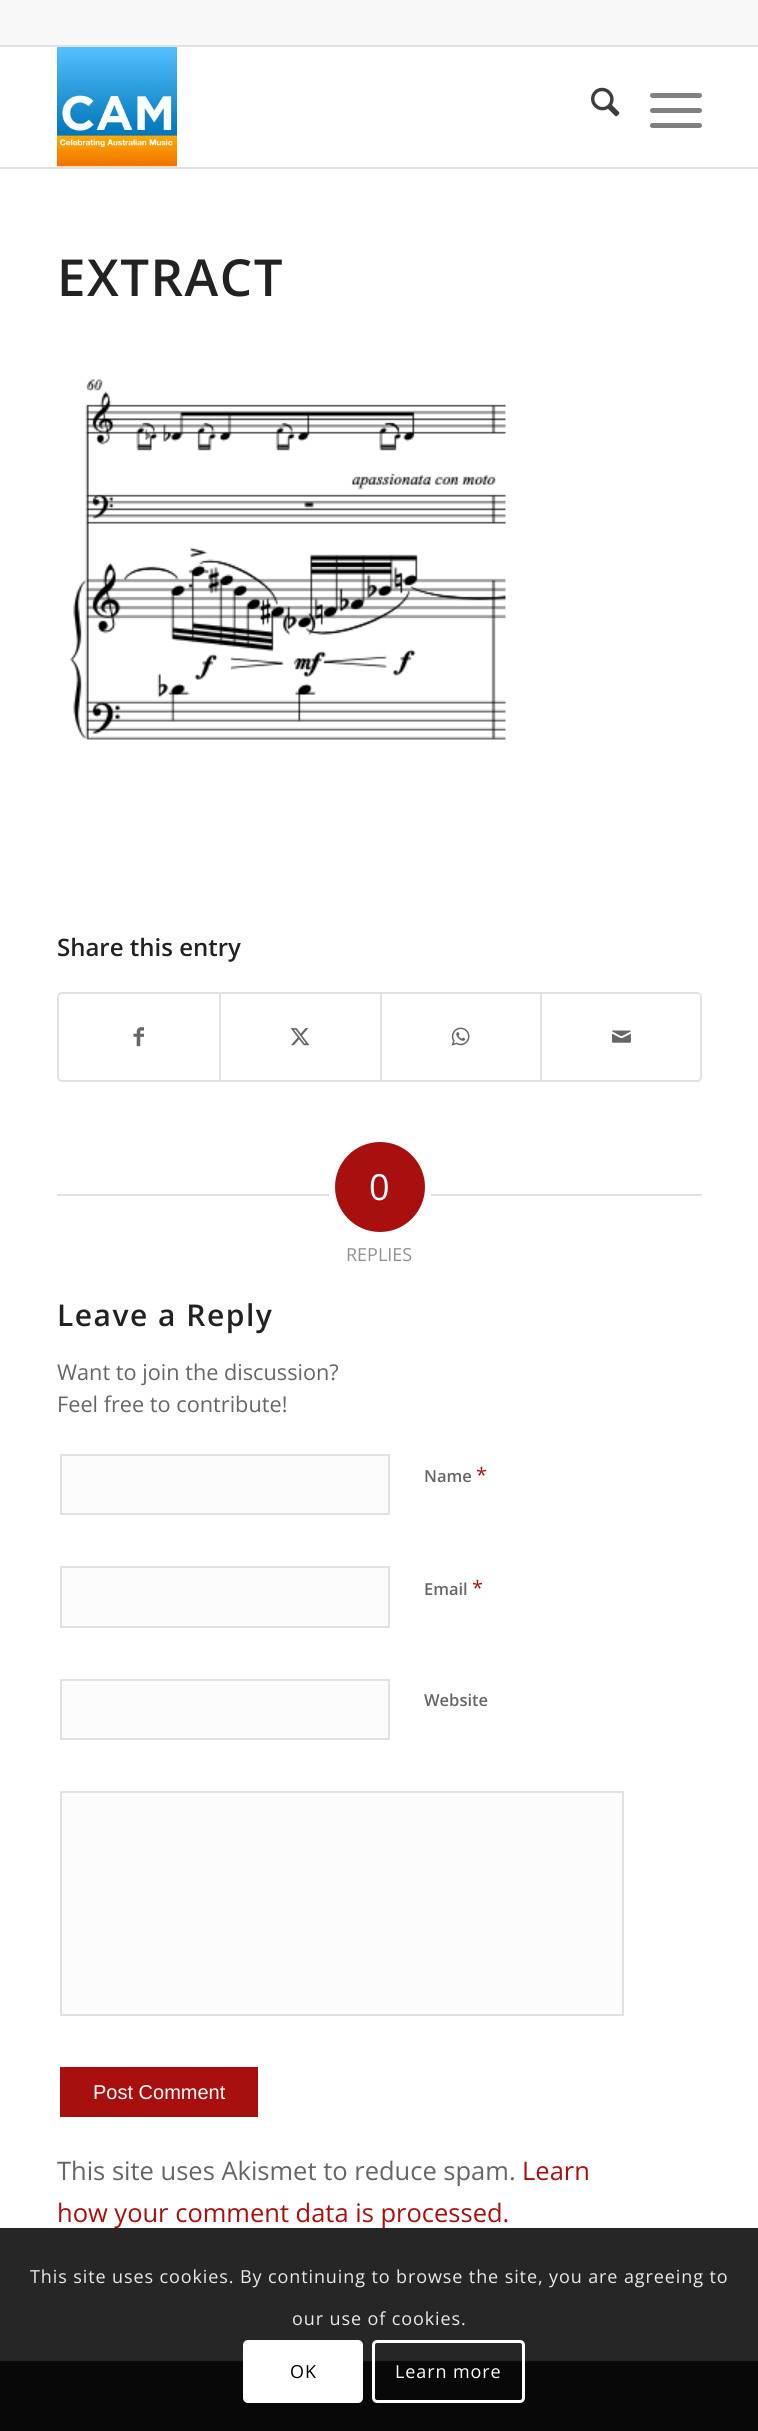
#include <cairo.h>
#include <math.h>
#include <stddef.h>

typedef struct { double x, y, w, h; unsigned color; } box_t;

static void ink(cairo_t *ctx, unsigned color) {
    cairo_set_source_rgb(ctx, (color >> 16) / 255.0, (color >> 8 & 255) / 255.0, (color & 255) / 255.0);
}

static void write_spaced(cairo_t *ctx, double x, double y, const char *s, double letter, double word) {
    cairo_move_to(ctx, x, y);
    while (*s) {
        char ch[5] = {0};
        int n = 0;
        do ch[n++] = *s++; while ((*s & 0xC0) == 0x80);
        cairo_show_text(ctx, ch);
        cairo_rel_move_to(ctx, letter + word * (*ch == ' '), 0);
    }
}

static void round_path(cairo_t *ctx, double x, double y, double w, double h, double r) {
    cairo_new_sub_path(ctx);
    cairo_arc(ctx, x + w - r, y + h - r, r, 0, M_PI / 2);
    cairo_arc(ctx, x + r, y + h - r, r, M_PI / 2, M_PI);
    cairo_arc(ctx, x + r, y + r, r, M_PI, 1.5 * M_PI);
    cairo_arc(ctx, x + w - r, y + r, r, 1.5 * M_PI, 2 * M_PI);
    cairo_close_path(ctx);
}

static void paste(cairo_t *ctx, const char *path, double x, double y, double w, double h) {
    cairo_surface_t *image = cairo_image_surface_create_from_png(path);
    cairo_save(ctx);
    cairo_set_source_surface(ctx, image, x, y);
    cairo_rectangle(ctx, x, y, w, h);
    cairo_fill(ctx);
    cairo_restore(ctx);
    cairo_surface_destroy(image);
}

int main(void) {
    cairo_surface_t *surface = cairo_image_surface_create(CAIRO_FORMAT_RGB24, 758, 2431);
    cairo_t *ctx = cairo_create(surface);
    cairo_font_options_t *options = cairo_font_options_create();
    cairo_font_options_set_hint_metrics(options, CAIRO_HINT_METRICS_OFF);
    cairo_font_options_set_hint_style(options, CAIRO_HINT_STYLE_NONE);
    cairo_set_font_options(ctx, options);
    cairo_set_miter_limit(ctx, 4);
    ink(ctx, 0xFFFFFF);
    cairo_paint(ctx);
    {
        static const box_t items[] = {
            {0, 0, 758, 45, 0xF8F8F8},
            {0, 45, 758, 2, 0xE1E1E1},
            {0, 167, 758, 2, 0xE1E1E1},
        };
        for (size_t i = 0; i < sizeof items / sizeof *items; i++) {
            ink(ctx, items[i].color);
            cairo_rectangle(ctx, items[i].x, items[i].y, items[i].w, items[i].h);
            cairo_fill(ctx);
        }
    }
    paste(ctx, "media/1.png", 57, 47, 120, 120);
    paste(ctx, "media/2.png", 591, 87, 29, 30);
    ink(ctx, 0x808080);
    round_path(ctx, 650, 108, 52, 5, 2.5);
    cairo_fill(ctx);
    round_path(ctx, 650, 93, 52, 5, 2.5);
    cairo_fill(ctx);
    round_path(ctx, 650, 123, 52, 5, 2.5);
    cairo_fill(ctx);
    cairo_select_font_face(ctx, "Open Sans SemiBold", CAIRO_FONT_SLANT_NORMAL, CAIRO_FONT_WEIGHT_NORMAL);
    cairo_set_font_size(ctx, 51);
    ink(ctx, 0x222222);
    write_spaced(ctx, 57, 296, "EXTRACT", 1.5, 0);
    paste(ctx, "media/3.png", 70, 379, 436, 361);
    cairo_set_font_size(ctx, 24);
    cairo_move_to(ctx, 57, 956);
    cairo_show_text(ctx, "Share this entry");
    round_path(ctx, 58, 993, 643, 88, 4);
    ink(ctx, 0xE1E1E1);
    cairo_stroke(ctx);
    paste(ctx, "media/4.png", 133, 1027, 11, 20);
    cairo_rectangle(ctx, 219, 993, 2, 87);
    cairo_fill(ctx);
    paste(ctx, "media/5.png", 290, 1028, 20, 18);
    cairo_rectangle(ctx, 380, 993, 2, 87);
    cairo_fill(ctx);
    paste(ctx, "media/6.png", 451, 1027, 19, 19);
    cairo_rectangle(ctx, 540, 993, 2, 87);
    cairo_fill(ctx);
    paste(ctx, "media/7.png", 612, 1030, 19, 13);
    cairo_rectangle(ctx, 57, 1194, 272, 2);
    cairo_fill(ctx);
    ink(ctx, 0xA81010);
    cairo_arc(ctx, 380, 1187, 45, 0, 2 * M_PI);
    cairo_fill(ctx);
    cairo_select_font_face(ctx, "Open Sans", CAIRO_FONT_SLANT_NORMAL, CAIRO_FONT_WEIGHT_NORMAL);
    cairo_set_font_size(ctx, 36);
    ink(ctx, 0xFFFFFF);
    cairo_move_to(ctx, 369, 1200);
    cairo_show_text(ctx, "0");
    ink(ctx, 0xE1E1E1);
    cairo_rectangle(ctx, 431, 1194, 271, 2);
    cairo_fill(ctx);
    cairo_set_font_size(ctx, 18);
    ink(ctx, 0x919191);
    cairo_move_to(ctx, 346, 1261);
    cairo_show_text(ctx, "REPLIES");
    cairo_select_font_face(ctx, "Open Sans SemiBold", CAIRO_FONT_SLANT_NORMAL, CAIRO_FONT_WEIGHT_NORMAL);
    cairo_set_font_size(ctx, 30);
    ink(ctx, 0x222222);
    write_spaced(ctx, 57, 1326, "Leave a Reply", 1.5, 0);
    cairo_select_font_face(ctx, "Open Sans", CAIRO_FONT_SLANT_NORMAL, CAIRO_FONT_WEIGHT_NORMAL);
    cairo_set_font_size(ctx, 21.7);
    ink(ctx, 0x666666);
    cairo_move_to(ctx, 57, 1380);
    cairo_show_text(ctx, "Want to join the discussion?");
    cairo_move_to(ctx, 57, 1412);
    cairo_show_text(ctx, "Feel free to contribute!");
    ink(ctx, 0xFCFCFC);
    cairo_rectangle(ctx, 61, 1455, 328, 59);
    cairo_fill_preserve(ctx);
    ink(ctx, 0xE1E1E1);
    cairo_stroke(ctx);
    cairo_select_font_face(ctx, "Open Sans SemiBold", CAIRO_FONT_SLANT_NORMAL, CAIRO_FONT_WEIGHT_NORMAL);
    cairo_set_font_size(ctx, 16.5);
    ink(ctx, 0x666666);
    cairo_move_to(ctx, 424, 1482);
    cairo_show_text(ctx, "Name");
    cairo_select_font_face(ctx, "Open Sans", CAIRO_FONT_SLANT_NORMAL, CAIRO_FONT_WEIGHT_NORMAL);
    cairo_set_font_size(ctx, 20);
    ink(ctx, 0xA81010);
    cairo_move_to(ctx, 476, 1482);
    cairo_show_text(ctx, "*");
    ink(ctx, 0xFCFCFC);
    cairo_rectangle(ctx, 61, 1567, 328, 60);
    cairo_fill_preserve(ctx);
    ink(ctx, 0xE1E1E1);
    cairo_stroke(ctx);
    cairo_select_font_face(ctx, "Open Sans SemiBold", CAIRO_FONT_SLANT_NORMAL, CAIRO_FONT_WEIGHT_NORMAL);
    cairo_set_font_size(ctx, 16.5);
    ink(ctx, 0x666666);
    cairo_move_to(ctx, 424, 1595);
    cairo_show_text(ctx, "Email");
    cairo_select_font_face(ctx, "Open Sans", CAIRO_FONT_SLANT_NORMAL, CAIRO_FONT_WEIGHT_NORMAL);
    cairo_set_font_size(ctx, 20);
    ink(ctx, 0xA81010);
    cairo_move_to(ctx, 472, 1595);
    cairo_show_text(ctx, "*");
    ink(ctx, 0xFCFCFC);
    cairo_rectangle(ctx, 61, 1680, 328, 59);
    cairo_fill_preserve(ctx);
    ink(ctx, 0xE1E1E1);
    cairo_stroke(ctx);
    cairo_select_font_face(ctx, "Open Sans SemiBold", CAIRO_FONT_SLANT_NORMAL, CAIRO_FONT_WEIGHT_NORMAL);
    cairo_set_font_size(ctx, 16.5);
    ink(ctx, 0x666666);
    cairo_move_to(ctx, 424, 1706);
    cairo_show_text(ctx, "Website");
    ink(ctx, 0xFCFCFC);
    cairo_rectangle(ctx, 61, 1792, 562, 223);
    cairo_fill_preserve(ctx);
    ink(ctx, 0xE1E1E1);
    cairo_stroke(ctx);
    ink(ctx, 0xA81010);
    cairo_rectangle(ctx, 60, 2067, 198, 50);
    cairo_fill(ctx);
    cairo_select_font_face(ctx, "Liberation Sans", CAIRO_FONT_SLANT_NORMAL, CAIRO_FONT_WEIGHT_NORMAL);
    cairo_set_font_size(ctx, 20);
    ink(ctx, 0xFFFFFF);
    cairo_move_to(ctx, 93, 2099);
    cairo_show_text(ctx, "Post Comment");
    cairo_select_font_face(ctx, "Open Sans", CAIRO_FONT_SLANT_NORMAL, CAIRO_FONT_WEIGHT_NORMAL);
    cairo_set_font_size(ctx, 25.5);
    ink(ctx, 0x666666);
    cairo_move_to(ctx, 57, 2180);
    cairo_show_text(ctx, "This site uses Akismet to reduce spam.");
    ink(ctx, 0xA81010);
    cairo_move_to(ctx, 522, 2180);
    cairo_show_text(ctx, "Learn");
    cairo_move_to(ctx, 57, 2222);
    cairo_show_text(ctx, "how your comment data is processed.");
    ink(ctx, 0x333333);
    cairo_rectangle(ctx, 0, 2363, 758, 68);
    cairo_fill(ctx);
    ink(ctx, 0x444444);
    cairo_rectangle(ctx, 0, 2361, 758, 2);
    cairo_fill(ctx);
    cairo_set_source_rgba(ctx, 0, 0, 0, 0.85);
    cairo_rectangle(ctx, 0, 2228, 758, 203);
    cairo_fill(ctx);
    cairo_set_font_size(ctx, 18);
    ink(ctx, 0xE9E9E9);
    write_spaced(ctx, 30, 2283, "This site uses cookies. By continuing to browse the site, you are agreeing to", 0.9, 0);
    write_spaced(ctx, 292, 2325, "our use of cookies.", 0.9, 0);
    ink(ctx, 0xFFFFFF);
    round_path(ctx, 243, 2340, 120, 63, 5);
    cairo_fill(ctx);
    ink(ctx, 0x000000);
    write_spaced(ctx, 290, 2378, "OK", 0.9, 0);
    round_path(ctx, 373.5, 2341.5, 150, 60, 3.5);
    ink(ctx, 0xFFFFFF);
    cairo_set_line_width(ctx, 3);
    cairo_stroke(ctx);
    write_spaced(ctx, 395, 2378, "Learn more", 0.9, 0);
    cairo_surface_write_to_png(surface, "image.png");
    cairo_font_options_destroy(options);
    cairo_destroy(ctx);
    cairo_surface_destroy(surface);
    return 0;
}
